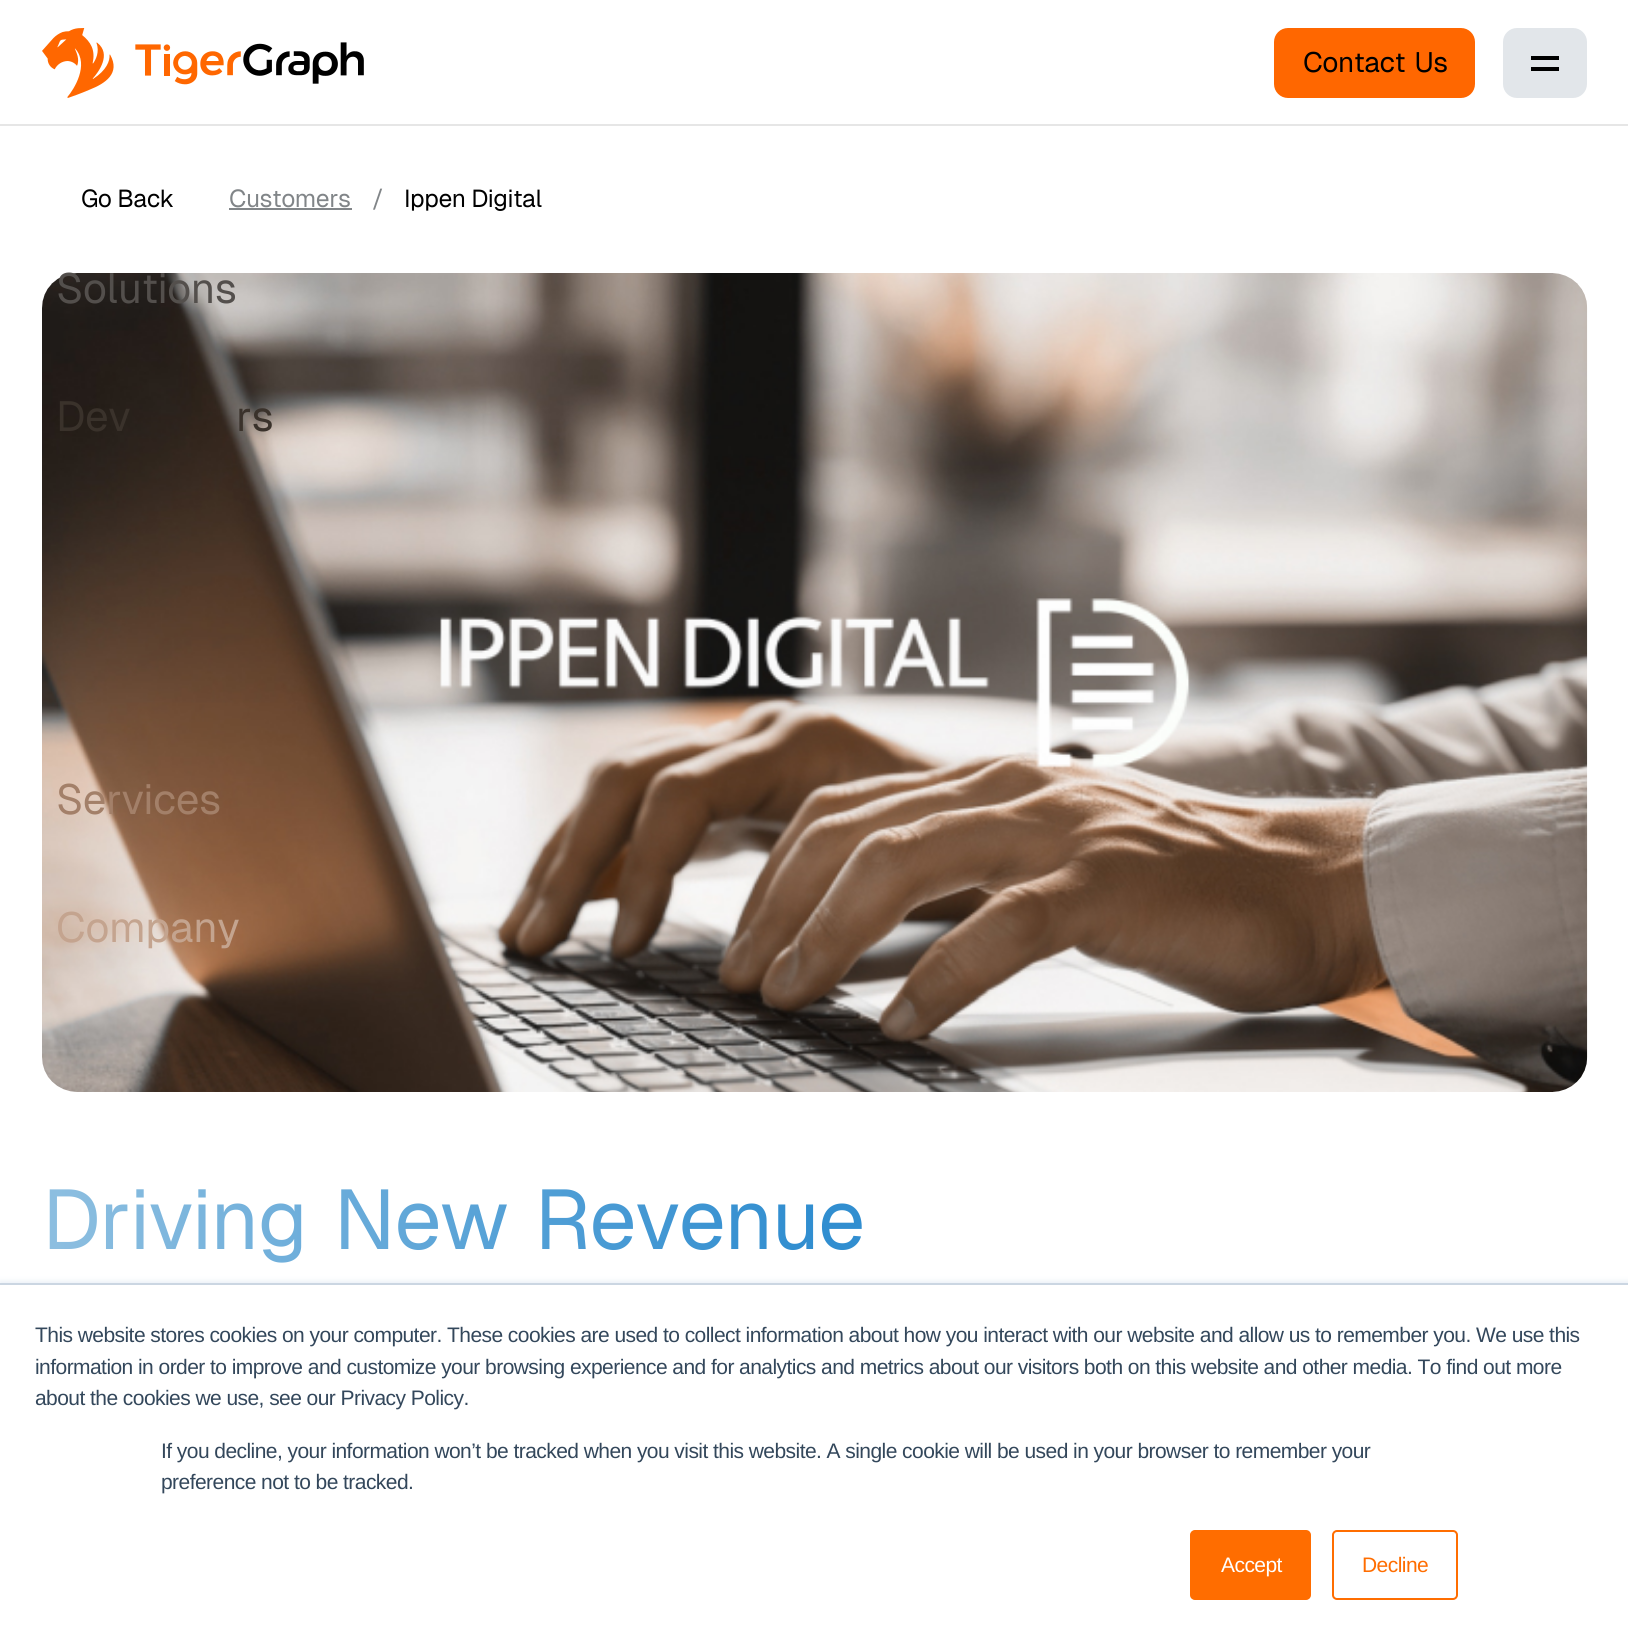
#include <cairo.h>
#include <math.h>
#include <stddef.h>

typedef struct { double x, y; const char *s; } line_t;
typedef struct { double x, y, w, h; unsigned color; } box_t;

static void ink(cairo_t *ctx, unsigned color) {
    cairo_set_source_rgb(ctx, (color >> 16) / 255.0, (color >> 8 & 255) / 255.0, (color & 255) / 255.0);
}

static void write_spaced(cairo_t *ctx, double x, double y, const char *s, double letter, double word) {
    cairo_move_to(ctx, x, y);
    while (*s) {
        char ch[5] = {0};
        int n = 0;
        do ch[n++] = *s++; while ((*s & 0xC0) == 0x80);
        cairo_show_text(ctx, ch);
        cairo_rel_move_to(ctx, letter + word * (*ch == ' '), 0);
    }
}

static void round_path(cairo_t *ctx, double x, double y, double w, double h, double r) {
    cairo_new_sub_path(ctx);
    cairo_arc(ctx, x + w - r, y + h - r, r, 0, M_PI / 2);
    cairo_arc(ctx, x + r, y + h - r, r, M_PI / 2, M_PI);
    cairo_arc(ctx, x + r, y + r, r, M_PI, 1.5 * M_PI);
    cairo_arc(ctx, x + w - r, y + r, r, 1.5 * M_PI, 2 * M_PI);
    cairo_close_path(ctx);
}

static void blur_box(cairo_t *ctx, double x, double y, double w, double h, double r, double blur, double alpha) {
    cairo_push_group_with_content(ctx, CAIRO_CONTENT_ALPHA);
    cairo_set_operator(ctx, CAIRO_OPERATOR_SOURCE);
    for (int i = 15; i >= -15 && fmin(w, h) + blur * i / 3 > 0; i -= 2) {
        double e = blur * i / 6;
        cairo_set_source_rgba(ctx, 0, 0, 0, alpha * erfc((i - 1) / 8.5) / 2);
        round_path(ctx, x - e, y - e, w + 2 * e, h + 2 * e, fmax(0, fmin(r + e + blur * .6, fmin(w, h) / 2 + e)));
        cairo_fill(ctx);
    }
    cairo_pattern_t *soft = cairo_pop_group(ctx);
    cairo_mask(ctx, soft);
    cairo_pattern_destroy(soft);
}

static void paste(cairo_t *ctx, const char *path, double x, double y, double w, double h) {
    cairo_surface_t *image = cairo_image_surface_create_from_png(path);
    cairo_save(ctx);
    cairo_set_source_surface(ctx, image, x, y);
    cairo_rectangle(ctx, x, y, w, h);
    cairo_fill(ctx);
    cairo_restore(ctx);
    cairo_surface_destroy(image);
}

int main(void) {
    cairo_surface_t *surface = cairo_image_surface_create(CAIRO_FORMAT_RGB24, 1628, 1645);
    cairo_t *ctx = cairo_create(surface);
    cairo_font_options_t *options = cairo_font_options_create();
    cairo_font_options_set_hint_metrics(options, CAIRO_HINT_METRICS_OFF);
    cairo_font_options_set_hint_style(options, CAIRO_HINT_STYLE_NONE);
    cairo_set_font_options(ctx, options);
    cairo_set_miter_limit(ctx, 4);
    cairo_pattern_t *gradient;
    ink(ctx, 0xFFFFFF);
    cairo_paint(ctx);
    paste(ctx, "media/1.png", 42, 28, 322, 70);
    ink(ctx, 0xFF6700);
    round_path(ctx, 1274, 28, 201, 70, 14);
    cairo_fill(ctx);
    cairo_select_font_face(ctx, "Geist", CAIRO_FONT_SLANT_NORMAL, CAIRO_FONT_WEIGHT_NORMAL);
    cairo_set_font_size(ctx, 28);
    ink(ctx, 0x000000);
    write_spaced(ctx, 1303, 72, "Contact Us", -0.56, 3);
    ink(ctx, 0xE2E6EA);
    round_path(ctx, 1503, 28, 84, 70, 14);
    cairo_fill(ctx);
    {
        static const box_t items[] = {
            {1531, 56, 28, 4, 0x000000},
            {1531, 67, 28, 4, 0x000000},
            {0, 124, 1628, 2, 0xE6E6E6},
        };
        for (size_t i = 0; i < sizeof items / sizeof *items; i++) {
            ink(ctx, items[i].color);
            cairo_rectangle(ctx, items[i].x, items[i].y, items[i].w, items[i].h);
            cairo_fill(ctx);
        }
    }
    paste(ctx, "media/2.png", 42, 273, 1546, 819);
    cairo_set_font_size(ctx, 42);
    ink(ctx, 0x534F4C);
    write_spaced(ctx, 56, 303, "Solutions", -0.56, 0);
    ink(ctx, 0x3A322B);
    write_spaced(ctx, 56, 431, "Dev", -0.56, 0);
    write_spaced(ctx, 236, 431, "rs", -0.56, 0);
    ink(ctx, 0xA38069);
    write_spaced(ctx, 56, 814, "Services", -0.56, 0);
    ink(ctx, 0xC4A48F);
    write_spaced(ctx, 56, 942, "Company", -0.56, 0);
    cairo_set_font_size(ctx, 24.5);
    ink(ctx, 0x000000);
    write_spaced(ctx, 81, 207, "Go Back", -0.5, 0);
    ink(ctx, 0x818588);
    write_spaced(ctx, 229, 207, "Customers", -0.5, 0);
    cairo_rectangle(ctx, 229, 208, 123, 2);
    cairo_fill(ctx);
    write_spaced(ctx, 372, 207, "/", -0.5, 0);
    ink(ctx, 0x000000);
    write_spaced(ctx, 404, 207, "Ippen Digital", -0.5, 0);
    cairo_set_font_size(ctx, 84);
    gradient = cairo_pattern_create_linear(40, 1259, 867, 1273);
    cairo_pattern_add_color_stop_rgba(gradient, 0.02, 0.549, 0.745, 0.878, 1);
    cairo_pattern_add_color_stop_rgba(gradient, 0.92, 0.192, 0.557, 0.816, 1);
    cairo_set_source(ctx, gradient);
    cairo_pattern_destroy(gradient);
    write_spaced(ctx, 42, 1249, "Driving New Revenue", -1.7, 8);
    ink(ctx, 0xEAF0F6);
    blur_box(ctx, 0, 1281, 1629, 362, 0, 2.5, 1);
    ink(ctx, 0xFFFFFF);
    cairo_rectangle(ctx, 0, 1285, 1628, 360);
    cairo_fill(ctx);
    ink(ctx, 0xCBD6E2);
    cairo_rectangle(ctx, 0, 1283, 1628, 2);
    cairo_fill(ctx);
    cairo_select_font_face(ctx, "Liberation Sans", CAIRO_FONT_SLANT_NORMAL, CAIRO_FONT_WEIGHT_NORMAL);
    cairo_set_font_size(ctx, 21);
    ink(ctx, 0x33475B);
    {
        static const line_t items[] = {
            {35, 1342, "This website stores cookies on your computer. These cookies are used to collect information about how you interact with our website and allow us to remember you. We use this"},
            {35, 1374, "information in order to improve and customize your browsing experience and for analytics and metrics about our visitors both on this website and other media. To find out more"},
            {35, 1405, "about the cookies we use, see our Privacy Policy."},
            {161, 1458, "If you decline, your information won’t be tracked when you visit this website. A single cookie will be used in your browser to remember your"},
            {161, 1489, "preference not to be tracked."},
        };
        for (size_t i = 0; i < sizeof items / sizeof *items; i++) {
            write_spaced(ctx, items[i].x, items[i].y, items[i].s, -0.56, 0);
        }
    }
    ink(ctx, 0xFF6D00);
    round_path(ctx, 1191, 1531, 119, 68, 4);
    cairo_fill_preserve(ctx);
    cairo_stroke(ctx);
    ink(ctx, 0xFFFFFF);
    write_spaced(ctx, 1221, 1572, "Accept", -0.56, 0);
    round_path(ctx, 1333, 1531, 124, 68, 4);
    ink(ctx, 0xFF6D00);
    cairo_stroke(ctx);
    write_spaced(ctx, 1362, 1572, "Decline", -0.56, 0);
    cairo_surface_write_to_png(surface, "image.png");
    cairo_font_options_destroy(options);
    cairo_destroy(ctx);
    cairo_surface_destroy(surface);
    return 0;
}
